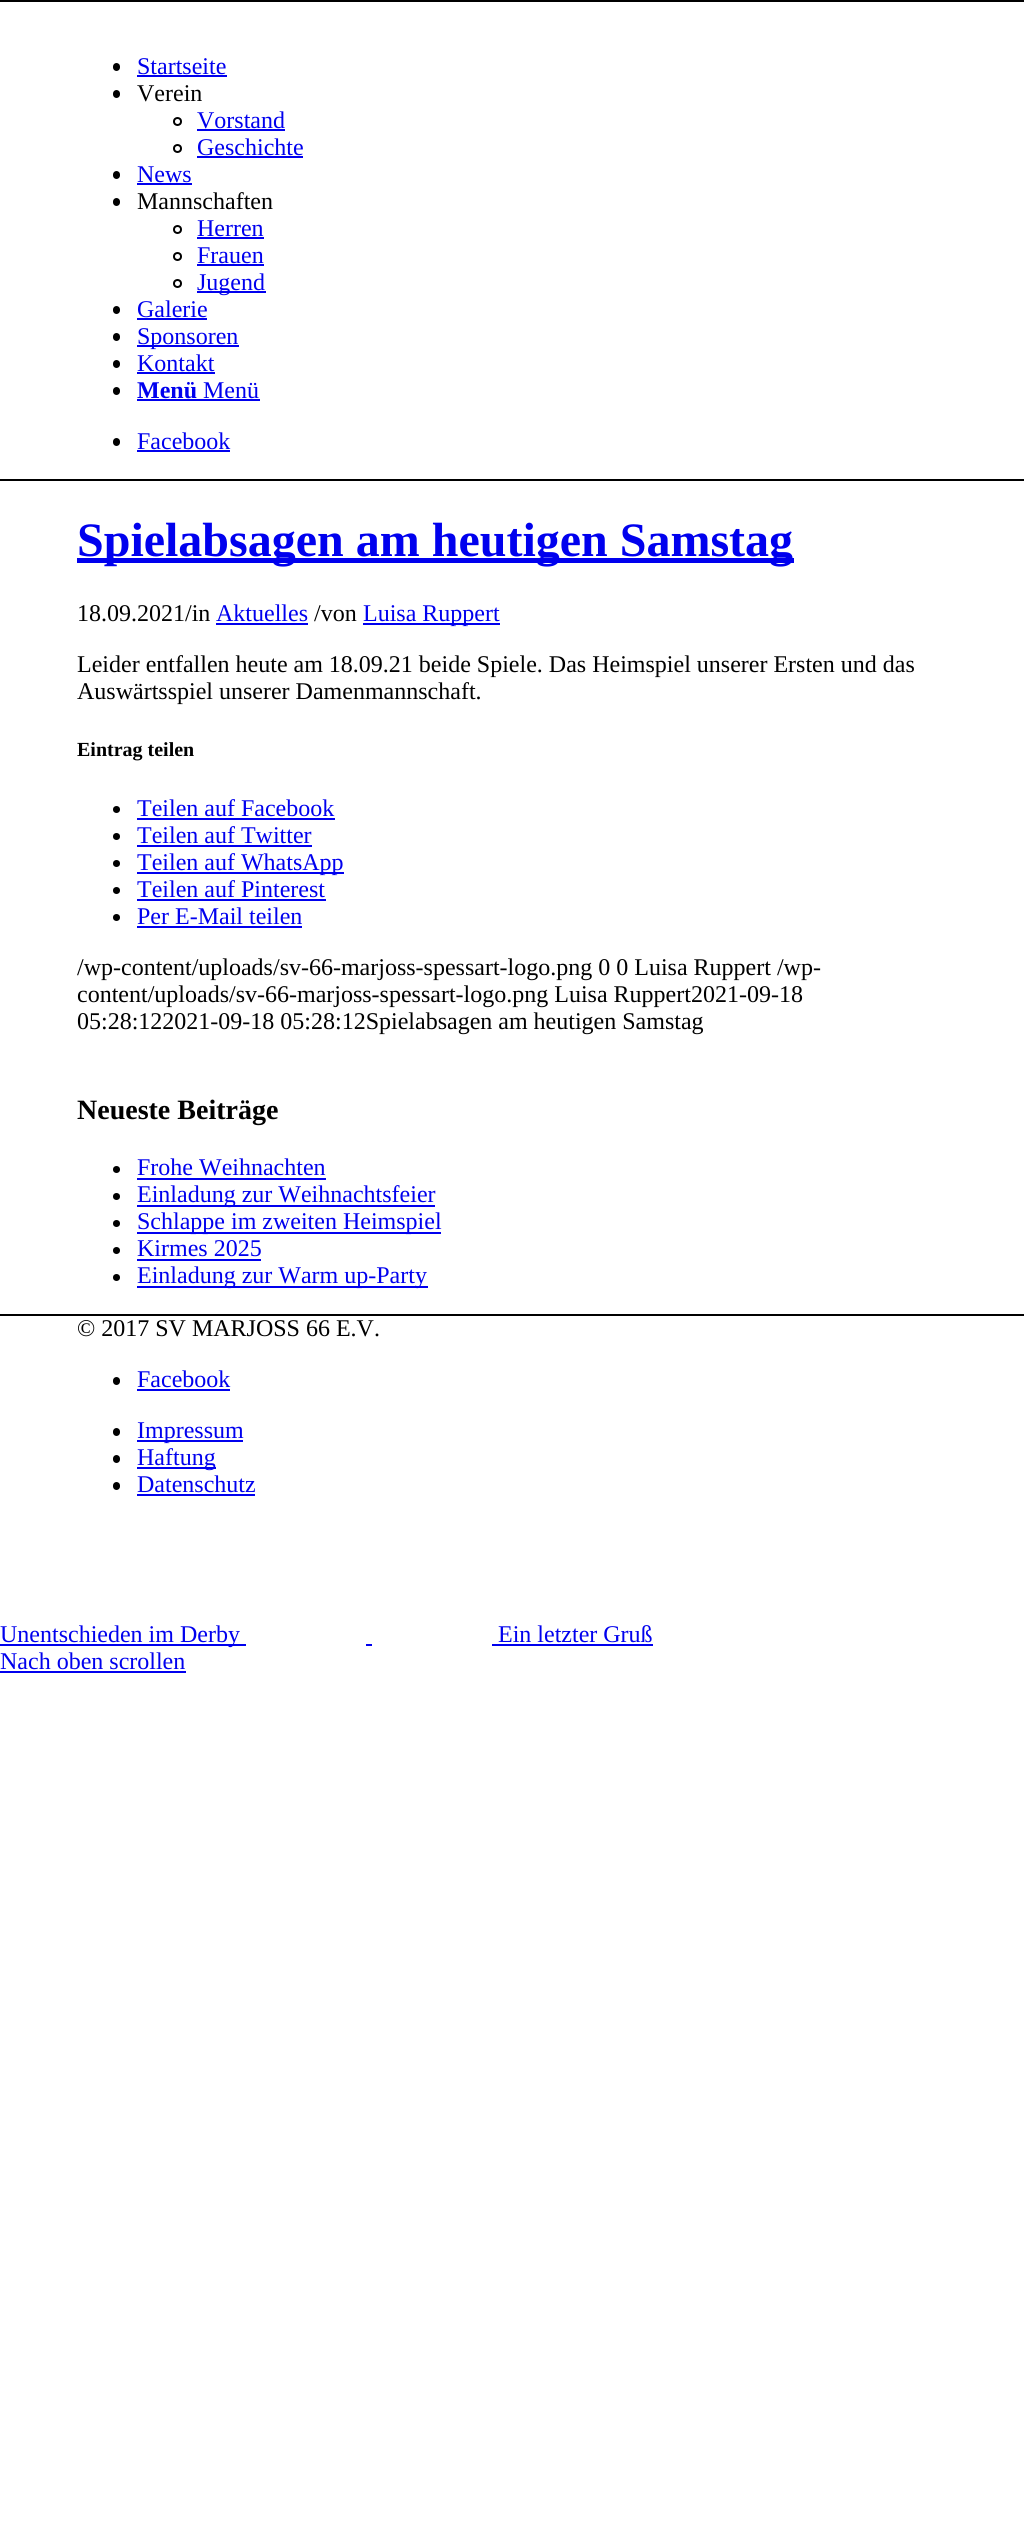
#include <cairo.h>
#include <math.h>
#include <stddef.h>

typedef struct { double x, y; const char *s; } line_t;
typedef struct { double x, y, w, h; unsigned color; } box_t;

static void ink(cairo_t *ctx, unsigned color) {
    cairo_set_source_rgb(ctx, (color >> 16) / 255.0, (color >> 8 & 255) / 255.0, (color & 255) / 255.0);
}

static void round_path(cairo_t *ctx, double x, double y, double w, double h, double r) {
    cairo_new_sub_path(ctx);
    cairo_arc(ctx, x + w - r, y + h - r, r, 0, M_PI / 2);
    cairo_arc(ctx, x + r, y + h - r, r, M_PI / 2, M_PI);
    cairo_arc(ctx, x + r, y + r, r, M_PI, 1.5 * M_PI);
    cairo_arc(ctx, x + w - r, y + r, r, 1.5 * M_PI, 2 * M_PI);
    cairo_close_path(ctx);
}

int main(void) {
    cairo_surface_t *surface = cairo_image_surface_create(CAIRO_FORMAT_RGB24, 1024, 2535);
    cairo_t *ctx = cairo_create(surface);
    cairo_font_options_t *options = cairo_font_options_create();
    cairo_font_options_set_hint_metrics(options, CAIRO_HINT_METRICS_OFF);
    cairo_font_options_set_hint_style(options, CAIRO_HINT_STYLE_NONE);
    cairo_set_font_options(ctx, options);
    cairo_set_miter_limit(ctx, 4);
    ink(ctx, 0xFFFFFF);
    cairo_paint(ctx);
    ink(ctx, 0x000000);
    cairo_rectangle(ctx, 0, 0, 1024, 2);
    cairo_fill(ctx);
    round_path(ctx, 113, 63, 7, 8, 3.5);
    cairo_fill(ctx);
    cairo_select_font_face(ctx, "Liberation Serif", CAIRO_FONT_SLANT_NORMAL, CAIRO_FONT_WEIGHT_NORMAL);
    cairo_set_font_size(ctx, 24);
    ink(ctx, 0x0000EE);
    cairo_move_to(ctx, 137, 74);
    cairo_show_text(ctx, "Startseite");
    cairo_rectangle(ctx, 137, 75, 90, 2);
    cairo_fill(ctx);
    ink(ctx, 0x000000);
    round_path(ctx, 113, 90, 7, 8, 3.5);
    cairo_fill(ctx);
    cairo_move_to(ctx, 137, 101);
    cairo_show_text(ctx, "Verein");
    cairo_new_path(ctx);
    cairo_arc(ctx, 177.5, 121.5, 3.5, 0, 2 * M_PI);
    cairo_stroke(ctx);
    ink(ctx, 0x0000EE);
    cairo_move_to(ctx, 197, 128);
    cairo_show_text(ctx, "Vorstand");
    cairo_rectangle(ctx, 197, 129, 88, 2);
    cairo_fill(ctx);
    cairo_arc(ctx, 177.5, 148.5, 3.5, 0, 2 * M_PI);
    ink(ctx, 0x000000);
    cairo_stroke(ctx);
    ink(ctx, 0x0000EE);
    cairo_move_to(ctx, 197, 155);
    cairo_show_text(ctx, "Geschichte");
    cairo_rectangle(ctx, 197, 156, 106, 2);
    cairo_fill(ctx);
    ink(ctx, 0x000000);
    round_path(ctx, 113, 171, 7, 8, 3.5);
    cairo_fill(ctx);
    ink(ctx, 0x0000EE);
    cairo_move_to(ctx, 137, 182);
    cairo_show_text(ctx, "News");
    cairo_rectangle(ctx, 137, 183, 55, 2);
    cairo_fill(ctx);
    ink(ctx, 0x000000);
    round_path(ctx, 113, 198, 7, 8, 3.5);
    cairo_fill(ctx);
    cairo_move_to(ctx, 137, 209);
    cairo_show_text(ctx, "Mannschaften");
    cairo_new_path(ctx);
    cairo_arc(ctx, 177.5, 229.5, 3.5, 0, 2 * M_PI);
    cairo_stroke(ctx);
    ink(ctx, 0x0000EE);
    cairo_move_to(ctx, 197, 236);
    cairo_show_text(ctx, "Herren");
    cairo_rectangle(ctx, 197, 237, 67, 2);
    cairo_fill(ctx);
    cairo_arc(ctx, 177.5, 256.5, 3.5, 0, 2 * M_PI);
    ink(ctx, 0x000000);
    cairo_stroke(ctx);
    ink(ctx, 0x0000EE);
    cairo_move_to(ctx, 197, 263);
    cairo_show_text(ctx, "Frauen");
    cairo_rectangle(ctx, 197, 264, 67, 2);
    cairo_fill(ctx);
    cairo_arc(ctx, 177.5, 283.5, 3.5, 0, 2 * M_PI);
    ink(ctx, 0x000000);
    cairo_stroke(ctx);
    ink(ctx, 0x0000EE);
    cairo_rectangle(ctx, 197, 291, 69, 2);
    cairo_fill(ctx);
    cairo_move_to(ctx, 197, 290);
    cairo_show_text(ctx, "Jugend");
    ink(ctx, 0x000000);
    round_path(ctx, 113, 306, 7, 8, 3.5);
    cairo_fill(ctx);
    ink(ctx, 0x0000EE);
    cairo_move_to(ctx, 137, 317);
    cairo_show_text(ctx, "Galerie");
    cairo_rectangle(ctx, 137, 318, 70, 2);
    cairo_fill(ctx);
    ink(ctx, 0x000000);
    round_path(ctx, 113, 333, 7, 8, 3.5);
    cairo_fill(ctx);
    ink(ctx, 0x0000EE);
    cairo_rectangle(ctx, 137, 345, 102, 2);
    cairo_fill(ctx);
    cairo_move_to(ctx, 137, 344);
    cairo_show_text(ctx, "Sponsoren");
    ink(ctx, 0x000000);
    round_path(ctx, 113, 360, 7, 8, 3.5);
    cairo_fill(ctx);
    ink(ctx, 0x0000EE);
    cairo_move_to(ctx, 137, 371);
    cairo_show_text(ctx, "Kontakt");
    cairo_rectangle(ctx, 137, 372, 78, 2);
    cairo_fill(ctx);
    ink(ctx, 0x000000);
    round_path(ctx, 113, 387, 7, 8, 3.5);
    cairo_fill(ctx);
    cairo_select_font_face(ctx, "Liberation Serif", CAIRO_FONT_SLANT_NORMAL, CAIRO_FONT_WEIGHT_BOLD);
    ink(ctx, 0x0000EE);
    cairo_move_to(ctx, 137, 398);
    cairo_show_text(ctx, "Menü");
    cairo_select_font_face(ctx, "Liberation Serif", CAIRO_FONT_SLANT_NORMAL, CAIRO_FONT_WEIGHT_NORMAL);
    cairo_move_to(ctx, 203, 398);
    cairo_show_text(ctx, "Menü");
    cairo_rectangle(ctx, 137, 399, 123, 2);
    cairo_fill(ctx);
    ink(ctx, 0x000000);
    round_path(ctx, 113, 438, 7, 8, 3.5);
    cairo_fill(ctx);
    ink(ctx, 0x0000EE);
    cairo_move_to(ctx, 137, 449);
    cairo_show_text(ctx, "Facebook");
    {
        static const box_t items[] = {
            {137, 450, 93, 2, 0x0000EE},
            {0, 479, 1024, 2, 0x000000},
            {77, 558, 717, 5, 0x0000EE},
        };
        for (size_t i = 0; i < sizeof items / sizeof *items; i++) {
            ink(ctx, items[i].color);
            cairo_rectangle(ctx, items[i].x, items[i].y, items[i].w, items[i].h);
            cairo_fill(ctx);
        }
    }
    cairo_select_font_face(ctx, "Liberation Serif", CAIRO_FONT_SLANT_NORMAL, CAIRO_FONT_WEIGHT_BOLD);
    cairo_set_font_size(ctx, 48);
    cairo_move_to(ctx, 77, 556);
    cairo_show_text(ctx, "Spielabsagen am heutigen Samstag");
    cairo_select_font_face(ctx, "Liberation Serif", CAIRO_FONT_SLANT_NORMAL, CAIRO_FONT_WEIGHT_NORMAL);
    cairo_set_font_size(ctx, 24);
    ink(ctx, 0x000000);
    cairo_move_to(ctx, 77, 621);
    cairo_show_text(ctx, "18.09.2021/in");
    ink(ctx, 0x0000EE);
    cairo_move_to(ctx, 216, 621);
    cairo_show_text(ctx, "Aktuelles");
    cairo_rectangle(ctx, 216, 623, 92, 2);
    cairo_fill(ctx);
    ink(ctx, 0x000000);
    cairo_move_to(ctx, 314, 621);
    cairo_show_text(ctx, "/von");
    ink(ctx, 0x0000EE);
    cairo_rectangle(ctx, 363, 623, 137, 2);
    cairo_fill(ctx);
    cairo_move_to(ctx, 363, 621);
    cairo_show_text(ctx, "Luisa Ruppert");
    ink(ctx, 0x000000);
    cairo_move_to(ctx, 77, 672);
    cairo_show_text(ctx, "Leider entfallen heute am 18.09.21 beide Spiele. Das Heimspiel unserer Ersten und das");
    cairo_move_to(ctx, 77, 699);
    cairo_show_text(ctx, "Auswärtsspiel unserer Damenmannschaft.");
    cairo_select_font_face(ctx, "Liberation Serif", CAIRO_FONT_SLANT_NORMAL, CAIRO_FONT_WEIGHT_BOLD);
    cairo_set_font_size(ctx, 20);
    cairo_move_to(ctx, 77, 756);
    cairo_show_text(ctx, "Eintrag teilen");
    cairo_new_path(ctx);
    cairo_arc(ctx, 116.5, 809.5, 3.5, 0, 2 * M_PI);
    cairo_fill(ctx);
    cairo_select_font_face(ctx, "Liberation Serif", CAIRO_FONT_SLANT_NORMAL, CAIRO_FONT_WEIGHT_NORMAL);
    cairo_set_font_size(ctx, 24);
    ink(ctx, 0x0000EE);
    cairo_move_to(ctx, 137, 816);
    cairo_show_text(ctx, "Teilen auf Facebook");
    cairo_rectangle(ctx, 137, 818, 198, 2);
    cairo_fill(ctx);
    ink(ctx, 0x000000);
    cairo_arc(ctx, 116.5, 836.5, 3.5, 0, 2 * M_PI);
    cairo_fill(ctx);
    ink(ctx, 0x0000EE);
    cairo_move_to(ctx, 137, 843);
    cairo_show_text(ctx, "Teilen auf Twitter");
    cairo_rectangle(ctx, 137, 845, 175, 2);
    cairo_fill(ctx);
    ink(ctx, 0x000000);
    cairo_arc(ctx, 116.5, 863.5, 3.5, 0, 2 * M_PI);
    cairo_fill(ctx);
    ink(ctx, 0x0000EE);
    cairo_rectangle(ctx, 137, 872, 207, 2);
    cairo_fill(ctx);
    cairo_move_to(ctx, 137, 870);
    cairo_show_text(ctx, "Teilen auf WhatsApp");
    ink(ctx, 0x000000);
    cairo_new_path(ctx);
    cairo_arc(ctx, 116.5, 890.5, 3.5, 0, 2 * M_PI);
    cairo_fill(ctx);
    ink(ctx, 0x0000EE);
    cairo_move_to(ctx, 137, 897);
    cairo_show_text(ctx, "Teilen auf Pinterest");
    cairo_rectangle(ctx, 137, 899, 189, 2);
    cairo_fill(ctx);
    ink(ctx, 0x000000);
    cairo_arc(ctx, 116.5, 917.5, 3.5, 0, 2 * M_PI);
    cairo_fill(ctx);
    ink(ctx, 0x0000EE);
    cairo_move_to(ctx, 137, 924);
    cairo_show_text(ctx, "Per E-Mail teilen");
    cairo_rectangle(ctx, 137, 926, 165, 2);
    cairo_fill(ctx);
    ink(ctx, 0x000000);
    {
        static const line_t items[] = {
            {77, 975, "/wp-content/uploads/sv-66-marjoss-spessart-logo.png 0 0 Luisa Ruppert /wp-"},
            {77, 1002, "content/uploads/sv-66-marjoss-spessart-logo.png Luisa Ruppert2021-09-18"},
            {77, 1029, "05:28:122021-09-18 05:28:12Spielabsagen am heutigen Samstag"},
        };
        for (size_t i = 0; i < sizeof items / sizeof *items; i++) {
            cairo_move_to(ctx, items[i].x, items[i].y);
            cairo_show_text(ctx, items[i].s);
        }
    }
    cairo_select_font_face(ctx, "Liberation Serif", CAIRO_FONT_SLANT_NORMAL, CAIRO_FONT_WEIGHT_BOLD);
    cairo_set_font_size(ctx, 28);
    cairo_move_to(ctx, 77, 1119);
    cairo_show_text(ctx, "Neueste Beiträge");
    cairo_new_path(ctx);
    cairo_arc(ctx, 116.5, 1169.5, 3.5, 0, 2 * M_PI);
    cairo_fill(ctx);
    cairo_select_font_face(ctx, "Liberation Serif", CAIRO_FONT_SLANT_NORMAL, CAIRO_FONT_WEIGHT_NORMAL);
    cairo_set_font_size(ctx, 24);
    ink(ctx, 0x0000EE);
    cairo_move_to(ctx, 137, 1175);
    cairo_show_text(ctx, "Frohe Weihnachten");
    cairo_rectangle(ctx, 137, 1178, 189, 2);
    cairo_fill(ctx);
    ink(ctx, 0x000000);
    cairo_arc(ctx, 116.5, 1196.5, 3.5, 0, 2 * M_PI);
    cairo_fill(ctx);
    ink(ctx, 0x0000EE);
    cairo_rectangle(ctx, 137, 1205, 298, 2);
    cairo_fill(ctx);
    cairo_move_to(ctx, 137, 1202);
    cairo_show_text(ctx, "Einladung zur Weihnachtsfeier");
    ink(ctx, 0x000000);
    cairo_new_path(ctx);
    cairo_arc(ctx, 116.5, 1223.5, 3.5, 0, 2 * M_PI);
    cairo_fill(ctx);
    ink(ctx, 0x0000EE);
    cairo_rectangle(ctx, 137, 1232, 304, 2);
    cairo_fill(ctx);
    cairo_move_to(ctx, 137, 1229);
    cairo_show_text(ctx, "Schlappe im zweiten Heimspiel");
    ink(ctx, 0x000000);
    cairo_new_path(ctx);
    cairo_arc(ctx, 116.5, 1250.5, 3.5, 0, 2 * M_PI);
    cairo_fill(ctx);
    ink(ctx, 0x0000EE);
    cairo_move_to(ctx, 137, 1256);
    cairo_show_text(ctx, "Kirmes 2025");
    cairo_rectangle(ctx, 137, 1259, 124, 2);
    cairo_fill(ctx);
    ink(ctx, 0x000000);
    cairo_arc(ctx, 116.5, 1277.5, 3.5, 0, 2 * M_PI);
    cairo_fill(ctx);
    ink(ctx, 0x0000EE);
    cairo_rectangle(ctx, 137, 1286, 291, 2);
    cairo_fill(ctx);
    cairo_move_to(ctx, 137, 1283);
    cairo_show_text(ctx, "Einladung zur Warm up-Party");
    ink(ctx, 0x000000);
    cairo_rectangle(ctx, 0, 1314, 1024, 2);
    cairo_fill(ctx);
    cairo_move_to(ctx, 77, 1336);
    cairo_show_text(ctx, "© 2017 SV MARJOSS 66 E.V.");
    round_path(ctx, 113, 1377, 7, 8, 3.5);
    cairo_fill(ctx);
    ink(ctx, 0x0000EE);
    cairo_move_to(ctx, 137, 1387);
    cairo_show_text(ctx, "Facebook");
    cairo_rectangle(ctx, 137, 1389, 93, 2);
    cairo_fill(ctx);
    ink(ctx, 0x000000);
    round_path(ctx, 113, 1428, 7, 8, 3.5);
    cairo_fill(ctx);
    ink(ctx, 0x0000EE);
    cairo_rectangle(ctx, 137, 1440, 106, 2);
    cairo_fill(ctx);
    cairo_move_to(ctx, 137, 1438);
    cairo_show_text(ctx, "Impressum");
    ink(ctx, 0x000000);
    round_path(ctx, 113, 1455, 7, 8, 3.5);
    cairo_fill(ctx);
    ink(ctx, 0x0000EE);
    cairo_rectangle(ctx, 137, 1467, 79, 2);
    cairo_fill(ctx);
    cairo_move_to(ctx, 137, 1465);
    cairo_show_text(ctx, "Haftung");
    ink(ctx, 0x000000);
    round_path(ctx, 113, 1482, 7, 8, 3.5);
    cairo_fill(ctx);
    ink(ctx, 0x0000EE);
    cairo_move_to(ctx, 137, 1492);
    cairo_show_text(ctx, "Datenschutz");
    cairo_rectangle(ctx, 137, 1494, 118, 2);
    cairo_fill(ctx);
    cairo_rectangle(ctx, 0, 1644, 246, 2);
    cairo_fill(ctx);
    cairo_move_to(ctx, 0, 1642);
    cairo_show_text(ctx, "Unentschieden im Derby");
    cairo_rectangle(ctx, 366, 1644, 6, 2);
    cairo_fill(ctx);
    cairo_move_to(ctx, 498, 1642);
    cairo_show_text(ctx, "Ein letzter Gruß");
    cairo_rectangle(ctx, 492, 1644, 161, 2);
    cairo_fill(ctx);
    cairo_move_to(ctx, 0, 1669);
    cairo_show_text(ctx, "Nach oben scrollen");
    cairo_rectangle(ctx, 0, 1671, 186, 2);
    cairo_fill(ctx);
    cairo_surface_write_to_png(surface, "image.png");
    cairo_font_options_destroy(options);
    cairo_destroy(ctx);
    cairo_surface_destroy(surface);
    return 0;
}
